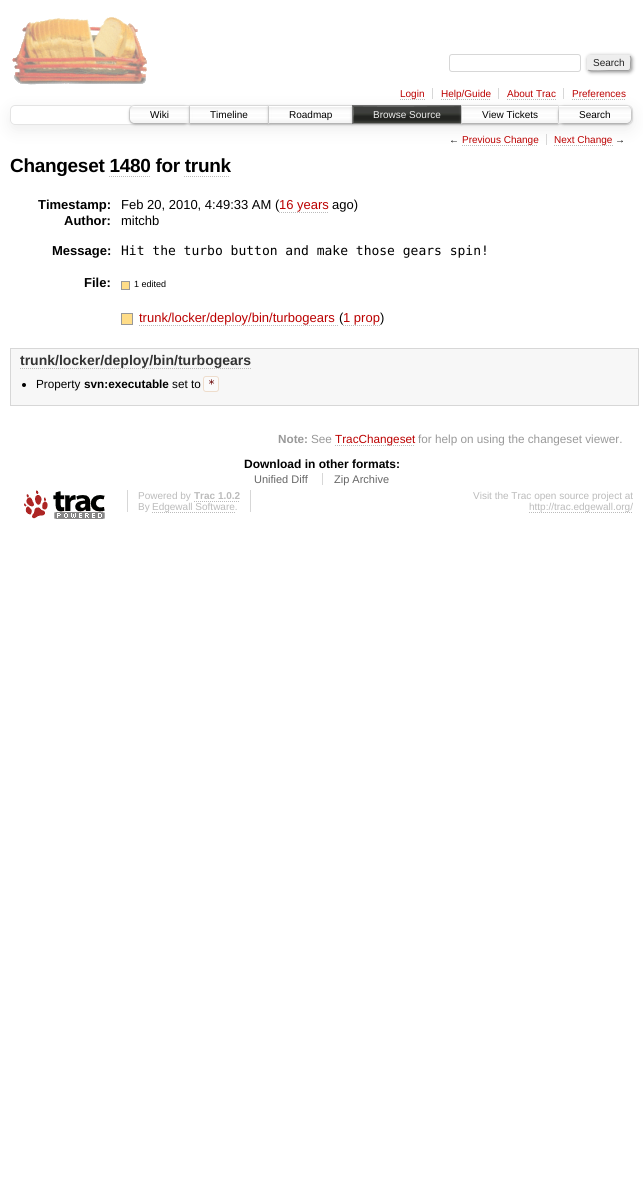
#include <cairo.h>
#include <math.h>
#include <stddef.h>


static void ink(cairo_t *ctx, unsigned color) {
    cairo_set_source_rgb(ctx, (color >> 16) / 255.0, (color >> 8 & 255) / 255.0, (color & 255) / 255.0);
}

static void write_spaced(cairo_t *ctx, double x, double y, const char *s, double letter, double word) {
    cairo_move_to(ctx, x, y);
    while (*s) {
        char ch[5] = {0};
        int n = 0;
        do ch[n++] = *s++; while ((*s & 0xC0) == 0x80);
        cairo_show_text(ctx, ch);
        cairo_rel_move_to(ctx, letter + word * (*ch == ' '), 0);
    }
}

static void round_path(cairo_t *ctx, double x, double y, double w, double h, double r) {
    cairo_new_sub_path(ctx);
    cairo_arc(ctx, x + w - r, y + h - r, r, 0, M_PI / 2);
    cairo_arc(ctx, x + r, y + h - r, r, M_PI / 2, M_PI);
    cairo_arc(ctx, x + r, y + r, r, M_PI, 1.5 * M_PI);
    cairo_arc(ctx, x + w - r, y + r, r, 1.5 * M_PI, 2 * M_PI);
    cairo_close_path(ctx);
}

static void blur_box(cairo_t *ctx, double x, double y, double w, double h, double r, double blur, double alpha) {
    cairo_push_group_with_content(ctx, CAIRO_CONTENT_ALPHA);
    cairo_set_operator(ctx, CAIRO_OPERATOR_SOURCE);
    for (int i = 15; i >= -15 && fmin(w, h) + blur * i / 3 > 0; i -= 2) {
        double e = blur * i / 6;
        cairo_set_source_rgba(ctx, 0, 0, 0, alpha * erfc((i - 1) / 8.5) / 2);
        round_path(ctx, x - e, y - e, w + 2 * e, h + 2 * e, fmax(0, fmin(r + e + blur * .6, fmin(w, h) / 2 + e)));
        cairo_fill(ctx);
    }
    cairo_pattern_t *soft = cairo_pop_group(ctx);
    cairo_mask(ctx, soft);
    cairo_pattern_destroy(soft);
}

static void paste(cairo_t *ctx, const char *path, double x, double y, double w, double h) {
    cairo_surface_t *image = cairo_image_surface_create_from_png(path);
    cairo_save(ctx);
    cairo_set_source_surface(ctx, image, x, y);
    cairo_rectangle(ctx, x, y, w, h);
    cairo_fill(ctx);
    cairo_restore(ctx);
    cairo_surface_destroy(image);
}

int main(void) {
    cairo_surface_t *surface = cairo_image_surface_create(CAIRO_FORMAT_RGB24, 643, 1190);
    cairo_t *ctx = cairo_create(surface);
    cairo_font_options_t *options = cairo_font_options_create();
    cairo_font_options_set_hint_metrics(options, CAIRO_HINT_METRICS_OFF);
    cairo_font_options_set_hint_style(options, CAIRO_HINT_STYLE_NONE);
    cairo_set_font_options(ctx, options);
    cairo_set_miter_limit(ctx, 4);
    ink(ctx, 0xFFFFFF);
    cairo_paint(ctx);
    paste(ctx, "media/1.png", 12, 17, 135, 68);
    round_path(ctx, 449.5, 54.5, 131, 17, 2.5);
    ink(ctx, 0xD7D7D7);
    cairo_set_line_width(ctx, 1);
    cairo_stroke(ctx);
    ink(ctx, 0x888888);
    blur_box(ctx, 588, 56, 44, 16, 3, 2, 1);
    ink(ctx, 0xEEEEEE);
    round_path(ctx, 587, 55, 44, 16, 3);
    cairo_fill(ctx);
    cairo_new_path(ctx);
    cairo_move_to(ctx, 630, 56);
    cairo_curve_to(ctx, 631.5, 58, 630.5, 61, 630.5, 63);
    cairo_curve_to(ctx, 630.5, 71.5, 631, 70.5, 621.5, 70.5);
    cairo_line_to(ctx, 609, 70.5);
    cairo_curve_to(ctx, 606, 70.5, 590, 71.5, 588, 70);
    ink(ctx, 0x9F9F9F);
    cairo_stroke(ctx);
    cairo_new_path(ctx);
    cairo_move_to(ctx, 588, 70);
    cairo_curve_to(ctx, 586.5, 68, 587.5, 65, 587.5, 63);
    cairo_curve_to(ctx, 587.5, 54.5, 587, 55.5, 596.5, 55.5);
    cairo_line_to(ctx, 609, 55.5);
    cairo_curve_to(ctx, 612, 55.5, 628, 54.5, 630, 56);
    ink(ctx, 0xEEEEEE);
    cairo_stroke(ctx);
    cairo_select_font_face(ctx, "Liberation Sans", CAIRO_FONT_SLANT_NORMAL, CAIRO_FONT_WEIGHT_NORMAL);
    cairo_set_font_size(ctx, 10);
    ink(ctx, 0x222222);
    cairo_move_to(ctx, 593, 66);
    cairo_show_text(ctx, "Search");
    cairo_save(ctx);
    cairo_set_fill_rule(ctx, CAIRO_FILL_RULE_EVEN_ODD);
    cairo_new_path(ctx);
    cairo_move_to(ctx, 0, 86);
    cairo_line_to(ctx, 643, 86);
    cairo_line_to(ctx, 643, 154);
    cairo_line_to(ctx, 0, 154);
    cairo_close_path(ctx);
    cairo_move_to(ctx, 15, 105);
    cairo_line_to(ctx, 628, 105);
    cairo_curve_to(ctx, 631, 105, 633, 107, 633, 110);
    cairo_line_to(ctx, 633, 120);
    cairo_curve_to(ctx, 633, 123, 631, 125, 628, 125);
    cairo_line_to(ctx, 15, 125);
    cairo_curve_to(ctx, 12, 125, 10, 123, 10, 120);
    cairo_line_to(ctx, 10, 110);
    cairo_curve_to(ctx, 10, 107, 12, 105, 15, 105);
    cairo_close_path(ctx);
    cairo_clip(ctx);
    ink(ctx, 0xEEEEEE);
    blur_box(ctx, 10, 110, 623, 20, 5, 7.5, 1);
    cairo_restore(ctx);
    ink(ctx, 0xD7D7D7);
    cairo_rectangle(ctx, 432, 88, 1, 11);
    cairo_fill(ctx);
    cairo_new_path(ctx);
    cairo_move_to(ctx, 400, 99.5);
    cairo_line_to(ctx, 425, 99.5);
    ink(ctx, 0xBBBBBB);
    cairo_set_dash(ctx, (double[]){1, 1}, 2, 0);
    cairo_stroke(ctx);
    ink(ctx, 0xBB0000);
    cairo_move_to(ctx, 400, 97);
    cairo_show_text(ctx, "Login");
    ink(ctx, 0xD7D7D7);
    cairo_rectangle(ctx, 498, 88, 1, 11);
    cairo_fill(ctx);
    cairo_new_path(ctx);
    cairo_move_to(ctx, 441, 99.5);
    cairo_line_to(ctx, 491, 99.5);
    ink(ctx, 0xBBBBBB);
    cairo_stroke(ctx);
    ink(ctx, 0xBB0000);
    cairo_move_to(ctx, 441, 97);
    cairo_show_text(ctx, "Help/Guide");
    ink(ctx, 0xD7D7D7);
    cairo_rectangle(ctx, 563, 88, 1, 11);
    cairo_fill(ctx);
    ink(ctx, 0xBB0000);
    cairo_move_to(ctx, 507, 97);
    cairo_show_text(ctx, "About Trac");
    cairo_new_path(ctx);
    cairo_move_to(ctx, 507, 99.5);
    cairo_line_to(ctx, 556, 99.5);
    ink(ctx, 0xBBBBBB);
    cairo_stroke(ctx);
    ink(ctx, 0xBB0000);
    cairo_move_to(ctx, 572, 97);
    cairo_show_text(ctx, "Preferences");
    cairo_new_path(ctx);
    cairo_move_to(ctx, 572, 99.5);
    cairo_line_to(ctx, 626, 99.5);
    ink(ctx, 0xBBBBBB);
    cairo_stroke(ctx);
    round_path(ctx, 10.5, 105.5, 622, 19, 4.5);
    ink(ctx, 0xE4E4E4);
    cairo_set_dash(ctx, NULL, 0, 0);
    cairo_stroke(ctx);
    ink(ctx, 0xFFFFFF);
    cairo_new_path(ctx);
    cairo_move_to(ctx, 134, 105);
    cairo_line_to(ctx, 190, 105);
    cairo_line_to(ctx, 190, 124);
    cairo_line_to(ctx, 134, 124);
    cairo_curve_to(ctx, 131, 124, 129, 122, 129, 119);
    cairo_line_to(ctx, 129, 110);
    cairo_curve_to(ctx, 129, 107, 131, 105, 134, 105);
    cairo_close_path(ctx);
    cairo_fill(ctx);
    paste(ctx, "media/2.png", 129, 107, 60, 17);
    cairo_new_path(ctx);
    cairo_move_to(ctx, 134, 105.5);
    cairo_line_to(ctx, 189.5, 105.5);
    cairo_line_to(ctx, 189.5, 123.5);
    cairo_line_to(ctx, 134, 123.5);
    cairo_curve_to(ctx, 131.5, 123.5, 129.5, 121.5, 129.5, 119);
    cairo_line_to(ctx, 129.5, 110);
    cairo_curve_to(ctx, 129.5, 107.5, 131.5, 105.5, 134, 105.5);
    cairo_close_path(ctx);
    ink(ctx, 0xE4E4E4);
    cairo_stroke(ctx);
    cairo_save(ctx);
    cairo_set_fill_rule(ctx, CAIRO_FILL_RULE_EVEN_ODD);
    cairo_new_path(ctx);
    cairo_move_to(ctx, 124, 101);
    cairo_line_to(ctx, 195, 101);
    cairo_line_to(ctx, 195, 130);
    cairo_line_to(ctx, 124, 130);
    cairo_close_path(ctx);
    cairo_move_to(ctx, 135, 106);
    cairo_line_to(ctx, 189, 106);
    cairo_line_to(ctx, 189, 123);
    cairo_line_to(ctx, 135, 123);
    cairo_curve_to(ctx, 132, 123, 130, 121, 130, 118);
    cairo_line_to(ctx, 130, 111);
    cairo_curve_to(ctx, 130, 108, 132, 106, 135, 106);
    cairo_close_path(ctx);
    cairo_clip(ctx);
    ink(ctx, 0x999999);
    blur_box(ctx, 130, 107, 59, 17, 5, 1.5, 1);
    cairo_restore(ctx);
    ink(ctx, 0x000000);
    cairo_move_to(ctx, 150, 118);
    cairo_show_text(ctx, "Wiki");
    ink(ctx, 0xFFFFFF);
    cairo_rectangle(ctx, 190, 108, 2, 15);
    cairo_fill(ctx);
    paste(ctx, "media/3.png", 190, 107, 78, 16);
    cairo_rectangle(ctx, 189.5, 105.5, 79, 18);
    ink(ctx, 0xE4E4E4);
    cairo_stroke(ctx);
    cairo_save(ctx);
    cairo_set_fill_rule(ctx, CAIRO_FILL_RULE_EVEN_ODD);
    cairo_new_path(ctx);
    cairo_move_to(ctx, 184, 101);
    cairo_line_to(ctx, 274, 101);
    cairo_line_to(ctx, 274, 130);
    cairo_line_to(ctx, 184, 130);
    cairo_close_path(ctx);
    cairo_move_to(ctx, 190, 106);
    cairo_line_to(ctx, 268, 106);
    cairo_line_to(ctx, 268, 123);
    cairo_line_to(ctx, 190, 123);
    cairo_close_path(ctx);
    cairo_clip(ctx);
    ink(ctx, 0x999999);
    blur_box(ctx, 190, 107, 78, 17, 0, 1.5, 1);
    cairo_restore(ctx);
    ink(ctx, 0x000000);
    cairo_move_to(ctx, 210, 118);
    cairo_show_text(ctx, "Timeline");
    ink(ctx, 0xFFFFFF);
    cairo_rectangle(ctx, 269, 106, 2, 17);
    cairo_fill(ctx);
    paste(ctx, "media/4.png", 269, 107, 83, 16);
    cairo_rectangle(ctx, 268.5, 105.5, 84, 18);
    ink(ctx, 0xE4E4E4);
    cairo_stroke(ctx);
    cairo_save(ctx);
    cairo_set_fill_rule(ctx, CAIRO_FILL_RULE_EVEN_ODD);
    cairo_new_path(ctx);
    cairo_move_to(ctx, 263, 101);
    cairo_line_to(ctx, 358, 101);
    cairo_line_to(ctx, 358, 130);
    cairo_line_to(ctx, 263, 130);
    cairo_close_path(ctx);
    cairo_move_to(ctx, 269, 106);
    cairo_line_to(ctx, 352, 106);
    cairo_line_to(ctx, 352, 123);
    cairo_line_to(ctx, 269, 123);
    cairo_close_path(ctx);
    cairo_clip(ctx);
    ink(ctx, 0x999999);
    blur_box(ctx, 269, 107, 83, 17, 0, 1.5, 1);
    cairo_restore(ctx);
    ink(ctx, 0x000000);
    cairo_move_to(ctx, 289, 118);
    cairo_show_text(ctx, "Roadmap");
    cairo_rectangle(ctx, 352.5, 105.5, 109, 18);
    ink(ctx, 0x666666);
    cairo_stroke(ctx);
    ink(ctx, 0x999999);
    blur_box(ctx, 353, 107, 108, 17, 0, 1.5, 1);
    ink(ctx, 0x000000);
    cairo_rectangle(ctx, 353, 106, 108, 17);
    cairo_fill(ctx);
    paste(ctx, "media/5.png", 353, 106, 108, 17);
    ink(ctx, 0xEEEEEE);
    cairo_move_to(ctx, 373, 118);
    cairo_show_text(ctx, "Browse Source");
    ink(ctx, 0xFFFFFF);
    cairo_rectangle(ctx, 462, 106, 2, 17);
    cairo_fill(ctx);
    paste(ctx, "media/6.png", 462, 107, 96, 16);
    cairo_rectangle(ctx, 461.5, 105.5, 97, 18);
    ink(ctx, 0xE4E4E4);
    cairo_stroke(ctx);
    cairo_save(ctx);
    cairo_set_fill_rule(ctx, CAIRO_FILL_RULE_EVEN_ODD);
    cairo_new_path(ctx);
    cairo_move_to(ctx, 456, 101);
    cairo_line_to(ctx, 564, 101);
    cairo_line_to(ctx, 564, 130);
    cairo_line_to(ctx, 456, 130);
    cairo_close_path(ctx);
    cairo_move_to(ctx, 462, 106);
    cairo_line_to(ctx, 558, 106);
    cairo_line_to(ctx, 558, 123);
    cairo_line_to(ctx, 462, 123);
    cairo_close_path(ctx);
    cairo_clip(ctx);
    ink(ctx, 0x999999);
    blur_box(ctx, 462, 107, 96, 17, 0, 1.5, 1);
    cairo_restore(ctx);
    ink(ctx, 0x000000);
    cairo_move_to(ctx, 482, 118);
    cairo_show_text(ctx, "View Tickets");
    ink(ctx, 0xFFFFFF);
    cairo_new_path(ctx);
    cairo_move_to(ctx, 558, 105);
    cairo_line_to(ctx, 627, 105);
    cairo_curve_to(ctx, 630, 105, 632, 107, 632, 110);
    cairo_line_to(ctx, 632, 119);
    cairo_curve_to(ctx, 632, 122, 630, 124, 627, 124);
    cairo_line_to(ctx, 558, 124);
    cairo_close_path(ctx);
    cairo_fill(ctx);
    paste(ctx, "media/7.png", 559, 107, 73, 17);
    cairo_new_path(ctx);
    cairo_move_to(ctx, 558.5, 105.5);
    cairo_line_to(ctx, 627, 105.5);
    cairo_curve_to(ctx, 629.5, 105.5, 631.5, 107.5, 631.5, 110);
    cairo_line_to(ctx, 631.5, 119);
    cairo_curve_to(ctx, 631.5, 121.5, 629.5, 123.5, 627, 123.5);
    cairo_line_to(ctx, 558.5, 123.5);
    cairo_close_path(ctx);
    ink(ctx, 0xE4E4E4);
    cairo_stroke(ctx);
    cairo_save(ctx);
    cairo_set_fill_rule(ctx, CAIRO_FILL_RULE_EVEN_ODD);
    cairo_new_path(ctx);
    cairo_move_to(ctx, 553, 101);
    cairo_line_to(ctx, 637, 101);
    cairo_line_to(ctx, 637, 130);
    cairo_line_to(ctx, 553, 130);
    cairo_close_path(ctx);
    cairo_move_to(ctx, 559, 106);
    cairo_line_to(ctx, 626, 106);
    cairo_curve_to(ctx, 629, 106, 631, 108, 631, 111);
    cairo_line_to(ctx, 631, 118);
    cairo_curve_to(ctx, 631, 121, 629, 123, 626, 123);
    cairo_line_to(ctx, 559, 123);
    cairo_close_path(ctx);
    cairo_clip(ctx);
    ink(ctx, 0x999999);
    blur_box(ctx, 559, 107, 72, 17, 5, 1.5, 1);
    cairo_restore(ctx);
    ink(ctx, 0x000000);
    cairo_move_to(ctx, 579, 118);
    cairo_show_text(ctx, "Search");
    ink(ctx, 0xD7D7D7);
    cairo_rectangle(ctx, 546, 134, 1, 11);
    cairo_fill(ctx);
    ink(ctx, 0x000000);
    cairo_move_to(ctx, 449, 143);
    cairo_show_text(ctx, "←");
    cairo_new_path(ctx);
    cairo_move_to(ctx, 462, 145.5);
    cairo_line_to(ctx, 538, 145.5);
    ink(ctx, 0xBBBBBB);
    cairo_set_dash(ctx, (double[]){1, 1}, 2, 0);
    cairo_stroke(ctx);
    ink(ctx, 0xBB0000);
    cairo_move_to(ctx, 462, 143);
    cairo_show_text(ctx, "Previous Change");
    cairo_new_path(ctx);
    cairo_move_to(ctx, 554, 145.5);
    cairo_line_to(ctx, 613, 145.5);
    ink(ctx, 0xBBBBBB);
    cairo_stroke(ctx);
    ink(ctx, 0xBB0000);
    cairo_move_to(ctx, 554, 143);
    cairo_show_text(ctx, "Next Change");
    ink(ctx, 0x000000);
    cairo_move_to(ctx, 615, 143);
    cairo_show_text(ctx, "→");
    cairo_select_font_face(ctx, "Liberation Sans", CAIRO_FONT_SLANT_NORMAL, CAIRO_FONT_WEIGHT_BOLD);
    cairo_set_font_size(ctx, 19);
    write_spaced(ctx, 10, 172, "Changeset 1480 for trunk", -0.3, 0);
    cairo_new_path(ctx);
    cairo_move_to(ctx, 109, 176.5);
    cairo_line_to(ctx, 150, 176.5);
    ink(ctx, 0xBBBBBB);
    cairo_stroke(ctx);
    cairo_new_path(ctx);
    cairo_move_to(ctx, 184, 176.5);
    cairo_line_to(ctx, 230, 176.5);
    cairo_stroke(ctx);
    cairo_set_font_size(ctx, 13);
    ink(ctx, 0x000000);
    cairo_move_to(ctx, 38, 209);
    cairo_show_text(ctx, "Timestamp:");
    cairo_select_font_face(ctx, "Liberation Sans", CAIRO_FONT_SLANT_NORMAL, CAIRO_FONT_WEIGHT_NORMAL);
    cairo_move_to(ctx, 121, 209);
    cairo_show_text(ctx, "Feb 20, 2010, 4:49:33 AM (");
    ink(ctx, 0xBB0000);
    cairo_move_to(ctx, 279, 209);
    cairo_show_text(ctx, "16 years");
    cairo_new_path(ctx);
    cairo_move_to(ctx, 279, 212.5);
    cairo_line_to(ctx, 329, 212.5);
    ink(ctx, 0xBBBBBB);
    cairo_stroke(ctx);
    ink(ctx, 0x000000);
    cairo_move_to(ctx, 332, 209);
    cairo_show_text(ctx, "ago)");
    cairo_select_font_face(ctx, "Liberation Sans", CAIRO_FONT_SLANT_NORMAL, CAIRO_FONT_WEIGHT_BOLD);
    cairo_move_to(ctx, 64, 225);
    cairo_show_text(ctx, "Author:");
    cairo_select_font_face(ctx, "Liberation Sans", CAIRO_FONT_SLANT_NORMAL, CAIRO_FONT_WEIGHT_NORMAL);
    cairo_move_to(ctx, 121, 225);
    cairo_show_text(ctx, "mitchb");
    cairo_select_font_face(ctx, "Liberation Sans", CAIRO_FONT_SLANT_NORMAL, CAIRO_FONT_WEIGHT_BOLD);
    cairo_move_to(ctx, 52, 255);
    cairo_show_text(ctx, "Message:");
    cairo_select_font_face(ctx, "DejaVu Sans Mono", CAIRO_FONT_SLANT_NORMAL, CAIRO_FONT_WEIGHT_NORMAL);
    cairo_move_to(ctx, 121, 255);
    cairo_show_text(ctx, "Hit the turbo button and make those gears spin!");
    cairo_select_font_face(ctx, "Liberation Sans", CAIRO_FONT_SLANT_NORMAL, CAIRO_FONT_WEIGHT_BOLD);
    cairo_move_to(ctx, 84, 287);
    cairo_show_text(ctx, "File:");
    ink(ctx, 0xFFDD88);
    cairo_rectangle(ctx, 121.5, 281.5, 8, 8);
    cairo_fill_preserve(ctx);
    ink(ctx, 0x999999);
    cairo_set_dash(ctx, NULL, 0, 0);
    cairo_stroke(ctx);
    cairo_select_font_face(ctx, "Liberation Sans", CAIRO_FONT_SLANT_NORMAL, CAIRO_FONT_WEIGHT_NORMAL);
    cairo_set_font_size(ctx, 9);
    ink(ctx, 0x000000);
    cairo_move_to(ctx, 134, 287);
    cairo_show_text(ctx, "1 edited");
    ink(ctx, 0xFFDD88);
    cairo_rectangle(ctx, 121.5, 313.5, 11, 11);
    cairo_fill_preserve(ctx);
    ink(ctx, 0x999999);
    cairo_stroke(ctx);
    cairo_set_font_size(ctx, 13);
    ink(ctx, 0xBB0000);
    cairo_move_to(ctx, 139, 322);
    cairo_show_text(ctx, "trunk/locker/deploy/bin/turbogears");
    cairo_new_path(ctx);
    cairo_move_to(ctx, 139, 325.5);
    cairo_line_to(ctx, 339, 325.5);
    ink(ctx, 0xBBBBBB);
    cairo_set_dash(ctx, (double[]){1, 1}, 2, 0);
    cairo_stroke(ctx);
    ink(ctx, 0x000000);
    cairo_move_to(ctx, 339, 322);
    cairo_show_text(ctx, "(");
    ink(ctx, 0xBB0000);
    cairo_move_to(ctx, 343, 322);
    cairo_show_text(ctx, "1 prop");
    cairo_new_path(ctx);
    cairo_move_to(ctx, 343, 325.5);
    cairo_line_to(ctx, 380, 325.5);
    ink(ctx, 0xBBBBBB);
    cairo_stroke(ctx);
    ink(ctx, 0x000000);
    cairo_move_to(ctx, 380, 322);
    cairo_show_text(ctx, ")");
    ink(ctx, 0xF7F7F7);
    cairo_rectangle(ctx, 10.5, 348.5, 628, 57);
    cairo_fill_preserve(ctx);
    ink(ctx, 0xD7D7D7);
    cairo_set_dash(ctx, NULL, 0, 0);
    cairo_stroke(ctx);
    cairo_select_font_face(ctx, "Liberation Sans", CAIRO_FONT_SLANT_NORMAL, CAIRO_FONT_WEIGHT_BOLD);
    cairo_set_font_size(ctx, 14);
    ink(ctx, 0x333333);
    cairo_move_to(ctx, 20, 365);
    cairo_show_text(ctx, "trunk/locker/deploy/bin/turbogears");
    cairo_new_path(ctx);
    cairo_move_to(ctx, 20, 368.5);
    cairo_line_to(ctx, 251, 368.5);
    ink(ctx, 0xBBBBBB);
    cairo_set_dash(ctx, (double[]){1, 1}, 2, 0);
    cairo_stroke(ctx);
    ink(ctx, 0x000000);
    cairo_arc(ctx, 24, 385, 2, 0, 2 * M_PI);
    cairo_fill(ctx);
    cairo_select_font_face(ctx, "Liberation Sans", CAIRO_FONT_SLANT_NORMAL, CAIRO_FONT_WEIGHT_NORMAL);
    cairo_set_font_size(ctx, 11.75);
    cairo_move_to(ctx, 36, 388);
    cairo_show_text(ctx, "Property");
    cairo_select_font_face(ctx, "Liberation Sans", CAIRO_FONT_SLANT_NORMAL, CAIRO_FONT_WEIGHT_BOLD);
    cairo_move_to(ctx, 84, 388);
    cairo_show_text(ctx, "svn:executable");
    cairo_select_font_face(ctx, "Liberation Sans", CAIRO_FONT_SLANT_NORMAL, CAIRO_FONT_WEIGHT_NORMAL);
    cairo_move_to(ctx, 172, 388);
    cairo_show_text(ctx, "set to");
    ink(ctx, 0xFAFAFA);
    round_path(ctx, 203.5, 376.5, 15, 15, 2.5);
    cairo_fill_preserve(ctx);
    ink(ctx, 0xEEDDCC);
    cairo_set_dash(ctx, NULL, 0, 0);
    cairo_stroke(ctx);
    cairo_select_font_face(ctx, "DejaVu Sans Mono", CAIRO_FONT_SLANT_ITALIC, CAIRO_FONT_WEIGHT_NORMAL);
    ink(ctx, 0x660000);
    cairo_move_to(ctx, 208, 388);
    cairo_show_text(ctx, "*");
    cairo_select_font_face(ctx, "Liberation Sans", CAIRO_FONT_SLANT_NORMAL, CAIRO_FONT_WEIGHT_BOLD);
    ink(ctx, 0x999999);
    cairo_move_to(ctx, 278, 443);
    cairo_show_text(ctx, "Note:");
    cairo_select_font_face(ctx, "Liberation Sans", CAIRO_FONT_SLANT_NORMAL, CAIRO_FONT_WEIGHT_NORMAL);
    cairo_move_to(ctx, 311, 443);
    cairo_show_text(ctx, "See");
    cairo_new_path(ctx);
    cairo_move_to(ctx, 335, 445.5);
    cairo_line_to(ctx, 415, 445.5);
    ink(ctx, 0xBBBBBB);
    cairo_set_dash(ctx, (double[]){1, 1}, 2, 0);
    cairo_stroke(ctx);
    ink(ctx, 0xBB0000);
    cairo_move_to(ctx, 335, 443);
    cairo_show_text(ctx, "TracChangeset");
    ink(ctx, 0x999999);
    cairo_move_to(ctx, 418, 443);
    cairo_show_text(ctx, "for help on using the changeset viewer.");
    cairo_select_font_face(ctx, "Liberation Sans", CAIRO_FONT_SLANT_NORMAL, CAIRO_FONT_WEIGHT_BOLD);
    cairo_set_font_size(ctx, 12);
    ink(ctx, 0x000000);
    cairo_move_to(ctx, 244, 468);
    cairo_show_text(ctx, "Download in other formats:");
    cairo_select_font_face(ctx, "Liberation Sans", CAIRO_FONT_SLANT_NORMAL, CAIRO_FONT_WEIGHT_NORMAL);
    cairo_set_font_size(ctx, 11);
    ink(ctx, 0x666666);
    cairo_move_to(ctx, 254, 483);
    cairo_show_text(ctx, "Unified Diff");
    ink(ctx, 0xD7D7D7);
    cairo_rectangle(ctx, 322, 473, 1, 12);
    cairo_fill(ctx);
    ink(ctx, 0x666666);
    cairo_move_to(ctx, 334, 483);
    cairo_show_text(ctx, "Zip Archive");
    paste(ctx, "media/8.png", 24, 490, 81, 29);
    ink(ctx, 0xD7D7D7);
    cairo_rectangle(ctx, 250, 490, 1, 22);
    cairo_fill(ctx);
    cairo_rectangle(ctx, 127, 490, 1, 22);
    cairo_fill(ctx);
    cairo_set_font_size(ctx, 10);
    ink(ctx, 0xBBBBBB);
    cairo_move_to(ctx, 138, 499);
    cairo_show_text(ctx, "Powered by");
    cairo_select_font_face(ctx, "Liberation Sans", CAIRO_FONT_SLANT_NORMAL, CAIRO_FONT_WEIGHT_BOLD);
    cairo_move_to(ctx, 194, 499);
    cairo_show_text(ctx, "Trac 1.0.2");
    cairo_new_path(ctx);
    cairo_move_to(ctx, 194, 501.5);
    cairo_line_to(ctx, 240, 501.5);
    cairo_stroke(ctx);
    cairo_select_font_face(ctx, "Liberation Sans", CAIRO_FONT_SLANT_NORMAL, CAIRO_FONT_WEIGHT_NORMAL);
    cairo_move_to(ctx, 138, 510);
    cairo_show_text(ctx, "By");
    cairo_new_path(ctx);
    cairo_move_to(ctx, 152, 512.5);
    cairo_line_to(ctx, 235, 512.5);
    cairo_stroke(ctx);
    cairo_move_to(ctx, 152, 510);
    cairo_show_text(ctx, "Edgewall Software.");
    cairo_move_to(ctx, 473, 499);
    cairo_show_text(ctx, "Visit the Trac open source project at");
    cairo_new_path(ctx);
    cairo_move_to(ctx, 529, 512.5);
    cairo_line_to(ctx, 633, 512.5);
    cairo_stroke(ctx);
    cairo_move_to(ctx, 529, 510);
    cairo_show_text(ctx, "http://trac.edgewall.org/");
    cairo_surface_write_to_png(surface, "image.png");
    cairo_font_options_destroy(options);
    cairo_destroy(ctx);
    cairo_surface_destroy(surface);
    return 0;
}
